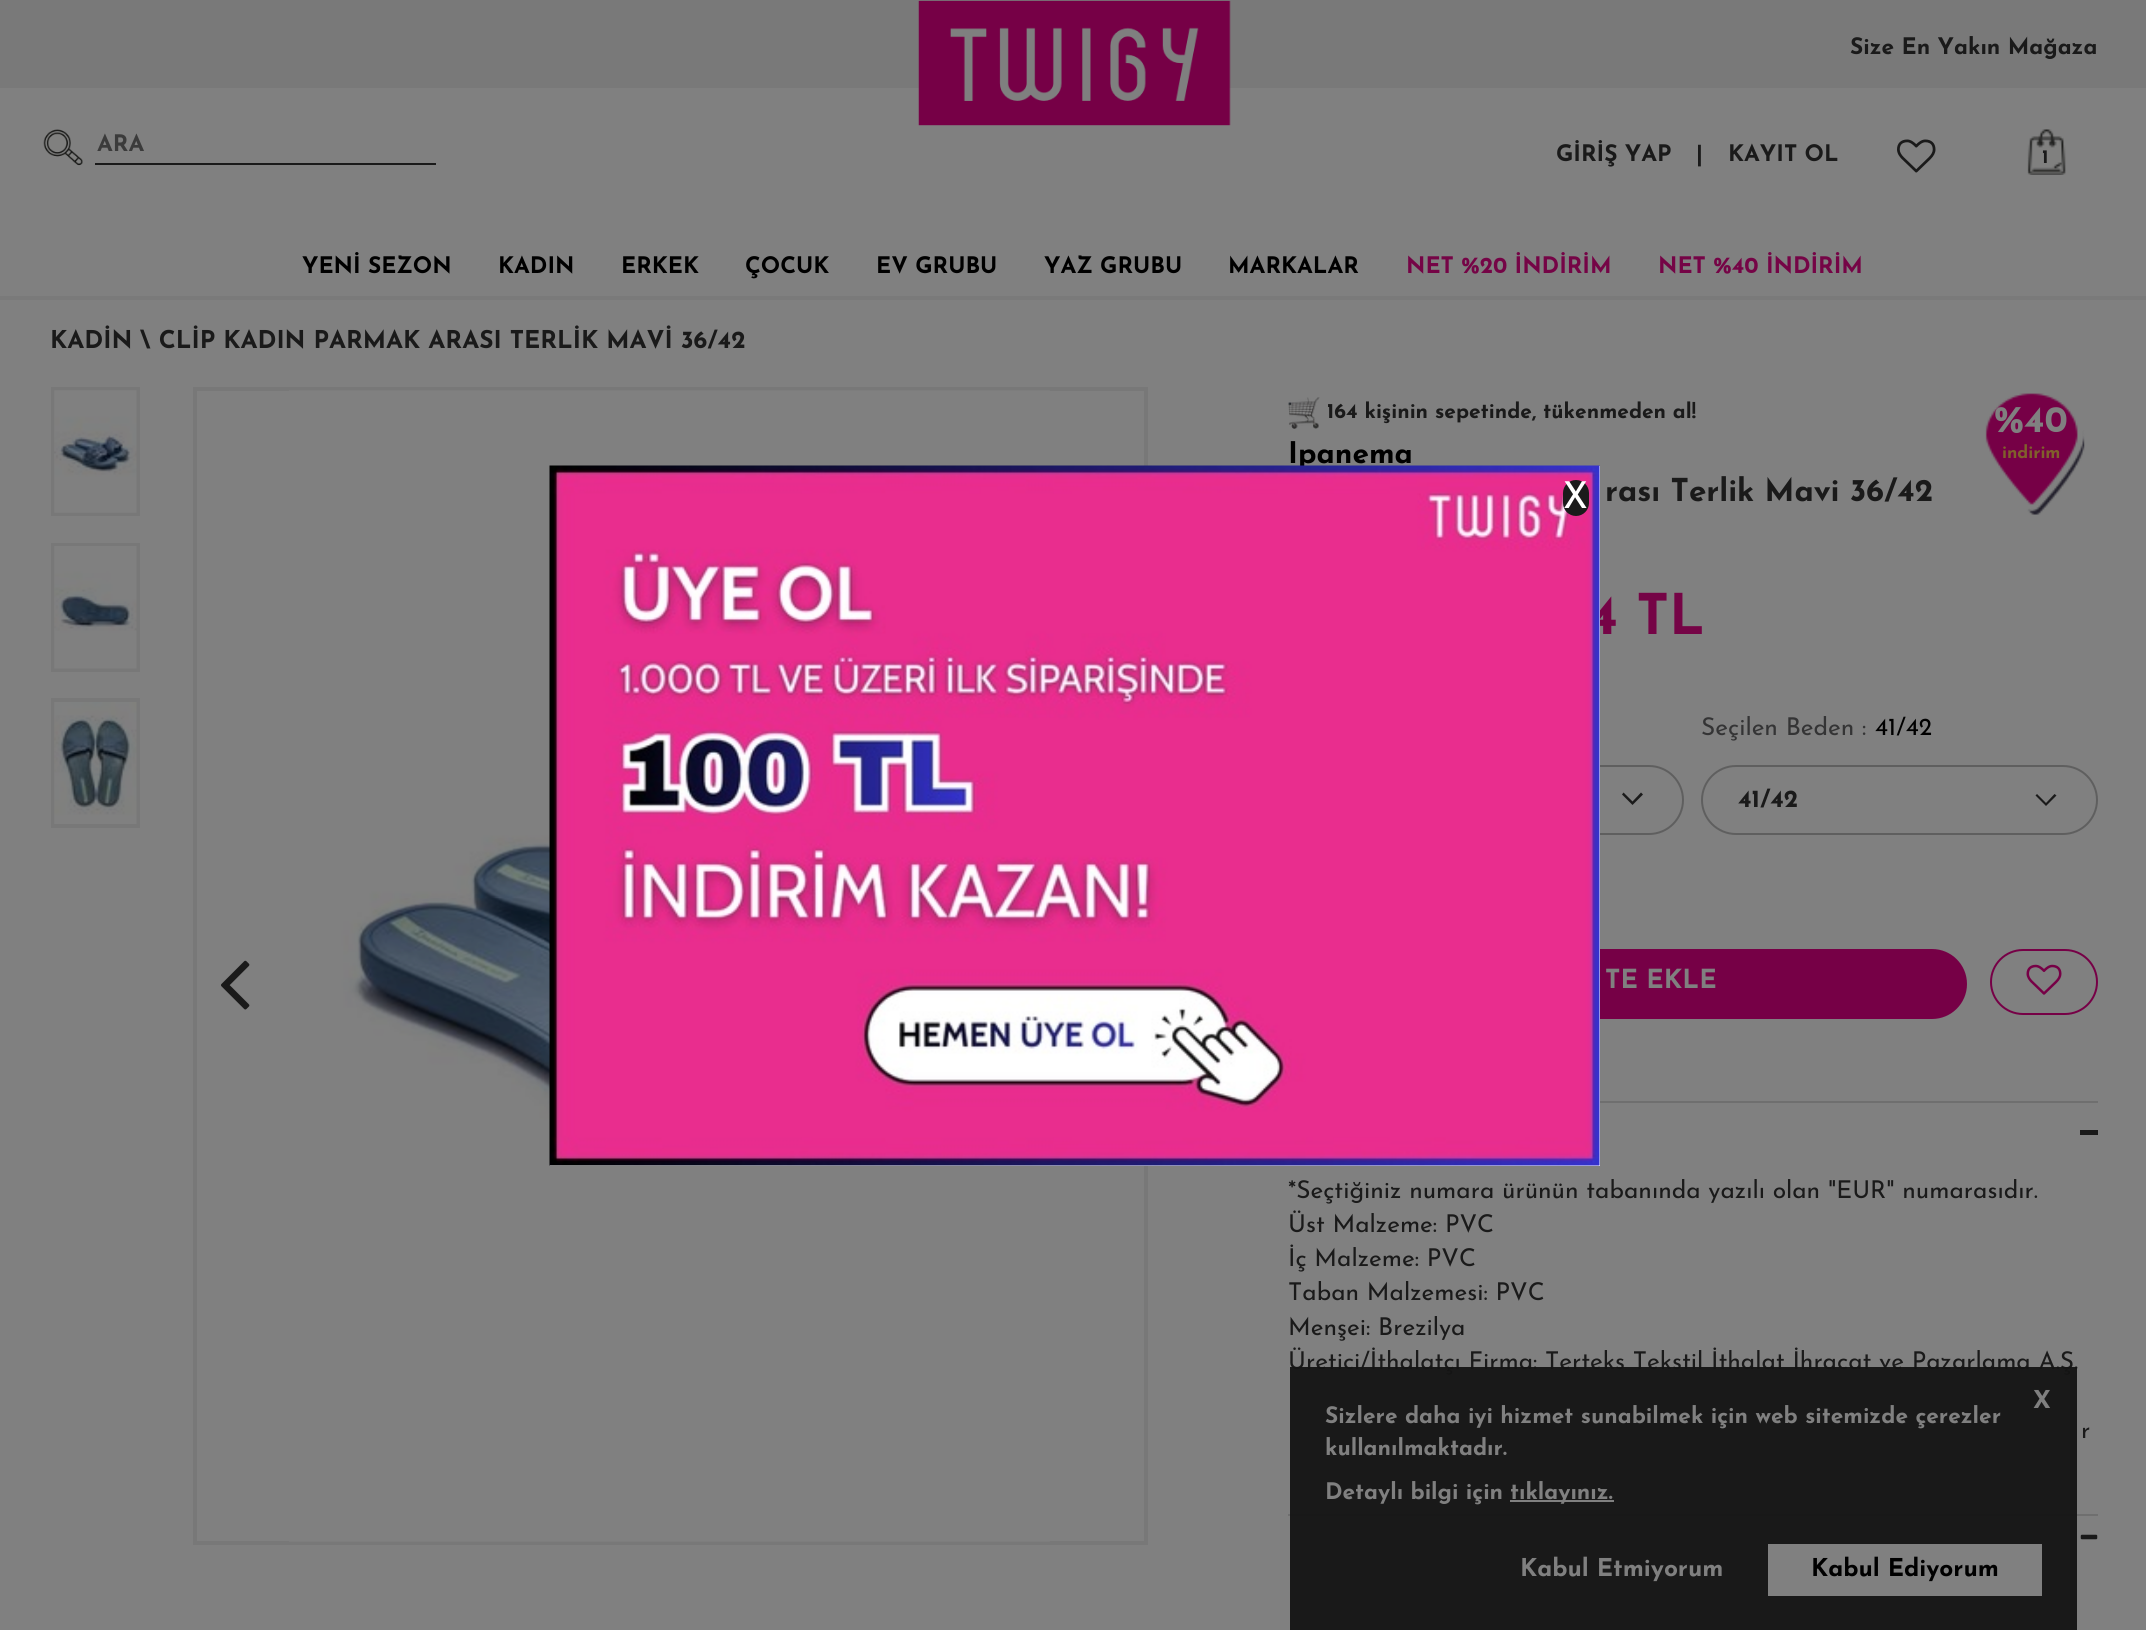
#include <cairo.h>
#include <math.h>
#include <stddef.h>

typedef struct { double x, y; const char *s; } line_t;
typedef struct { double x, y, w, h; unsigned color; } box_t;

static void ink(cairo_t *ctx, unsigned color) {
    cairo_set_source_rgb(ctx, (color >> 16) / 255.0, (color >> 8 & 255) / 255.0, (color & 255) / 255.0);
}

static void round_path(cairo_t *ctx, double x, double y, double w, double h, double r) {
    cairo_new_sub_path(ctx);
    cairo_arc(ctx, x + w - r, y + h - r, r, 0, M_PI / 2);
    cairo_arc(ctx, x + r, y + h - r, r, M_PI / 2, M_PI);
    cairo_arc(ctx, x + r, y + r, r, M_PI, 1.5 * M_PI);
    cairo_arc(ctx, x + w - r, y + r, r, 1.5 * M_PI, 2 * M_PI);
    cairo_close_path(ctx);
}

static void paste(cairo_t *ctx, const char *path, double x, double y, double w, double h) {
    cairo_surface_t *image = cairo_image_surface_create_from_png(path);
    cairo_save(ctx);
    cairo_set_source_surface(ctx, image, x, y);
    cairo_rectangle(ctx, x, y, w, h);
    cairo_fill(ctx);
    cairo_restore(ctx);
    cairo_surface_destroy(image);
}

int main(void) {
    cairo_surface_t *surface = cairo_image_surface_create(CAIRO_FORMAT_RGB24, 2146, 1630);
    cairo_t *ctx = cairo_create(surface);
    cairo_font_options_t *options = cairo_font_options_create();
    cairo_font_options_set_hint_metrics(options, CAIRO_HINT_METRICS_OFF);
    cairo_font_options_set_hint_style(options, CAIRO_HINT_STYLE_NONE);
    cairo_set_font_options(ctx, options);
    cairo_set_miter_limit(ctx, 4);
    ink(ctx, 0x808080);
    cairo_paint(ctx);
    ink(ctx, 0x7A7A7A);
    cairo_rectangle(ctx, 0, 296, 2146, 4);
    cairo_fill(ctx);
    ink(ctx, 0x797979);
    cairo_rectangle(ctx, 0, 0, 2146, 88);
    cairo_fill(ctx);
    paste(ctx, "media/1.png", 918, 0, 313, 126);
    cairo_select_font_face(ctx, "Josefin Sans", CAIRO_FONT_SLANT_NORMAL, CAIRO_FONT_WEIGHT_BOLD);
    cairo_set_font_size(ctx, 22.75);
    ink(ctx, 0x1A1A1A);
    cairo_move_to(ctx, 1850, 54);
    cairo_show_text(ctx, "Size En Yakın Mağaza");
    paste(ctx, "media/2.png", 43, 129, 40, 37);
    cairo_rectangle(ctx, 95, 163, 341, 2);
    cairo_fill(ctx);
    ink(ctx, 0x3B3B3B);
    cairo_move_to(ctx, 97, 151);
    cairo_show_text(ctx, "ARA");
    ink(ctx, 0x1A1A1A);
    {
        static const line_t items[] = {
            {1556, 161, "GİRİŞ YAP"},
            {1696, 161, "|"},
            {1728, 161, "KAYIT OL"},
        };
        for (size_t i = 0; i < sizeof items / sizeof *items; i++) {
            cairo_move_to(ctx, items[i].x, items[i].y);
            cairo_show_text(ctx, items[i].s);
        }
    }
    paste(ctx, "media/3.png", 1897, 139, 39, 34);
    paste(ctx, "media/4.png", 2027, 129, 39, 46);
    cairo_set_font_size(ctx, 19);
    cairo_move_to(ctx, 2042, 163);
    cairo_show_text(ctx, "1");
    cairo_set_font_size(ctx, 22.75);
    ink(ctx, 0x000000);
    {
        static const line_t items[] = {
            {302, 273, "YENİ SEZON"},
            {498, 273, "KADIN"},
            {621, 273, "ERKEK"},
            {745, 273, "ÇOCUK"},
            {876, 273, "EV GRUBU"},
            {1044, 273, "YAZ GRUBU"},
            {1228, 273, "MARKALAR"},
        };
        for (size_t i = 0; i < sizeof items / sizeof *items; i++) {
            cairo_move_to(ctx, items[i].x, items[i].y);
            cairo_show_text(ctx, items[i].s);
        }
    }
    ink(ctx, 0x750446);
    cairo_move_to(ctx, 1406, 273);
    cairo_show_text(ctx, "NET %20 İNDİRİM");
    cairo_move_to(ctx, 1658, 273);
    cairo_show_text(ctx, "NET %40 İNDİRİM");
    cairo_set_font_size(ctx, 24.5);
    ink(ctx, 0x1A1A1A);
    cairo_move_to(ctx, 50, 348);
    cairo_show_text(ctx, "KADİN \\ CLİP KADIN PARMAK ARASI TERLİK MAVİ 36/42");
    cairo_rectangle(ctx, 53, 389, 85, 125);
    ink(ctx, 0x787878);
    cairo_set_line_width(ctx, 4);
    cairo_stroke(ctx);
    paste(ctx, "media/5.png", 54, 390, 83, 123);
    cairo_rectangle(ctx, 53, 545, 85, 125);
    cairo_stroke(ctx);
    paste(ctx, "media/6.png", 54, 546, 83, 123);
    cairo_rectangle(ctx, 53, 700, 85, 126);
    cairo_stroke(ctx);
    paste(ctx, "media/7.png", 54, 702, 83, 122);
    cairo_rectangle(ctx, 195, 389, 951, 1154);
    cairo_stroke(ctx);
    paste(ctx, "media/8.png", 289, 390, 761, 1152);
    paste(ctx, "media/9.png", 221, 960, 29, 50);
    paste(ctx, "media/10.png", 1288, 397, 32, 32);
    cairo_set_font_size(ctx, 21);
    ink(ctx, 0x1A1A1A);
    cairo_move_to(ctx, 1327, 418);
    cairo_show_text(ctx, "164 kişinin sepetinde, tükenmeden al!");
    paste(ctx, "media/11.png", 1985, 393, 100, 122);
    cairo_set_font_size(ctx, 37);
    ink(ctx, 0x808080);
    cairo_move_to(ctx, 1994, 432);
    cairo_show_text(ctx, "%40");
    cairo_set_font_size(ctx, 17.5);
    ink(ctx, 0x80602B);
    cairo_move_to(ctx, 2002, 458);
    cairo_show_text(ctx, "indirim");
    cairo_set_font_size(ctx, 29.75);
    ink(ctx, 0x000000);
    cairo_move_to(ctx, 1288, 463);
    cairo_show_text(ctx, "Ipanema");
    cairo_set_font_size(ctx, 31.5);
    ink(ctx, 0x1A1A1A);
    cairo_move_to(ctx, 1605, 501);
    cairo_show_text(ctx, "rası Terlik Mavi 36/42");
    cairo_set_font_size(ctx, 56);
    ink(ctx, 0x750446);
    cairo_move_to(ctx, 1587, 634);
    cairo_show_text(ctx, "4 TL");
    round_path(ctx, 1289, 766, 394, 68, 34);
    ink(ctx, 0x5F5F5F);
    cairo_set_line_width(ctx, 2);
    cairo_stroke(ctx);
    ink(ctx, 0x1A1A1A);
    cairo_new_path(ctx);
    cairo_move_to(ctx, 1643, 794.5);
    cairo_line_to(ctx, 1641, 792.5);
    cairo_line_to(ctx, 1632.5, 801.5);
    cairo_line_to(ctx, 1623.5, 792.5);
    cairo_line_to(ctx, 1622, 794.5);
    cairo_line_to(ctx, 1632.5, 805);
    cairo_close_path(ctx);
    cairo_fill(ctx);
    cairo_select_font_face(ctx, "Josefin Sans", CAIRO_FONT_SLANT_NORMAL, CAIRO_FONT_WEIGHT_NORMAL);
    cairo_set_font_size(ctx, 24.5);
    ink(ctx, 0x343435);
    cairo_move_to(ctx, 1701, 735);
    cairo_show_text(ctx, "Seçilen Beden :");
    ink(ctx, 0x000000);
    cairo_move_to(ctx, 1875, 735);
    cairo_show_text(ctx, "41/42");
    round_path(ctx, 1702, 766, 395, 68, 34);
    ink(ctx, 0x5F5F5F);
    cairo_stroke(ctx);
    cairo_select_font_face(ctx, "Josefin Sans", CAIRO_FONT_SLANT_NORMAL, CAIRO_FONT_WEIGHT_BOLD);
    ink(ctx, 0x1A1A1A);
    cairo_move_to(ctx, 1738, 807);
    cairo_show_text(ctx, "41/42");
    cairo_new_path(ctx);
    cairo_move_to(ctx, 2056.5, 795.5);
    cairo_line_to(ctx, 2054.5, 794);
    cairo_line_to(ctx, 2046, 803);
    cairo_line_to(ctx, 2037, 794);
    cairo_line_to(ctx, 2035.5, 795.5);
    cairo_line_to(ctx, 2046, 806);
    cairo_close_path(ctx);
    cairo_fill(ctx);
    ink(ctx, 0x760046);
    round_path(ctx, 1288, 949, 679, 70, 35);
    cairo_fill(ctx);
    cairo_set_font_size(ctx, 26.25);
    ink(ctx, 0x808080);
    cairo_move_to(ctx, 1605, 988);
    cairo_show_text(ctx, "TE EKLE");
    round_path(ctx, 1991, 950, 106, 64, 32);
    ink(ctx, 0x760046);
    cairo_stroke(ctx);
    paste(ctx, "media/12.png", 2026, 964, 36, 31);
    {
        static const box_t items[] = {
            {1600, 1101, 498, 2, 0x6F6F6F},
            {1288, 1514, 810, 2, 0x6F6F6F},
            {2080, 1130, 18, 5, 0x1A1A1A},
        };
        for (size_t i = 0; i < sizeof items / sizeof *items; i++) {
            ink(ctx, items[i].color);
            cairo_rectangle(ctx, items[i].x, items[i].y, items[i].w, items[i].h);
            cairo_fill(ctx);
        }
    }
    cairo_select_font_face(ctx, "Josefin Sans", CAIRO_FONT_SLANT_NORMAL, CAIRO_FONT_WEIGHT_NORMAL);
    cairo_set_font_size(ctx, 24.5);
    {
        static const line_t items[] = {
            {1288, 1198, "*Seçtiğiniz numara ürünün tabanında yazılı olan \"EUR\" numarasıdır."},
            {1288, 1232, "Üst Malzeme: PVC"},
            {1288, 1266, "İç Malzeme: PVC"},
            {1288, 1300, "Taban Malzemesi: PVC"},
            {1288, 1335, "Menşei: Brezilya"},
            {1288, 1369, "Üretici/İthalatçı Firma: Terteks Tekstil İthalat İhracat ve Pazarlama A.Ş."},
            {2081, 1438, "r"},
        };
        for (size_t i = 0; i < sizeof items / sizeof *items; i++) {
            cairo_move_to(ctx, items[i].x, items[i].y);
            cairo_show_text(ctx, items[i].s);
        }
    }
    paste(ctx, "media/13.png", 2080, 1534, 18, 6);
    ink(ctx, 0xFFFFFF);
    cairo_rectangle(ctx, 550, 466, 1050, 700);
    cairo_fill(ctx);
    paste(ctx, "media/14.png", 549, 465, 1051, 701);
    ink(ctx, 0x1B1B1B);
    round_path(ctx, 1563, 480, 26, 36, 13);
    cairo_fill(ctx);
    cairo_set_font_size(ctx, 37);
    ink(ctx, 0xFFFFFF);
    cairo_move_to(ctx, 1563, 508);
    cairo_show_text(ctx, "X");
    cairo_set_source_rgba(ctx, 0.082, 0.082, 0.082, 0.95);
    cairo_rectangle(ctx, 1290, 1367, 787, 263);
    cairo_fill(ctx);
    cairo_select_font_face(ctx, "Josefin Sans", CAIRO_FONT_SLANT_NORMAL, CAIRO_FONT_WEIGHT_BOLD);
    cairo_set_font_size(ctx, 24.5);
    ink(ctx, 0x808080);
    cairo_move_to(ctx, 2033, 1408);
    cairo_show_text(ctx, "X");
    cairo_set_font_size(ctx, 22.75);
    {
        static const line_t items[] = {
            {1325, 1423, "Sizlere daha iyi hizmet sunabilmek için web sitemizde çerezler"},
            {1325, 1455, "kullanılmaktadır."},
            {1325, 1499, "Detaylı bilgi için"},
        };
        for (size_t i = 0; i < sizeof items / sizeof *items; i++) {
            cairo_move_to(ctx, items[i].x, items[i].y);
            cairo_show_text(ctx, items[i].s);
        }
    }
    cairo_rectangle(ctx, 1510, 1500, 104, 2);
    cairo_fill(ctx);
    cairo_move_to(ctx, 1510, 1499);
    cairo_show_text(ctx, "tıklayınız.");
    cairo_set_font_size(ctx, 24.5);
    cairo_move_to(ctx, 1520, 1576);
    cairo_show_text(ctx, "Kabul Etmiyorum");
    cairo_rectangle(ctx, 1768, 1544, 274, 52);
    cairo_fill(ctx);
    ink(ctx, 0x000000);
    cairo_move_to(ctx, 1811, 1576);
    cairo_show_text(ctx, "Kabul Ediyorum");
    cairo_surface_write_to_png(surface, "image.png");
    cairo_font_options_destroy(options);
    cairo_destroy(ctx);
    cairo_surface_destroy(surface);
    return 0;
}
